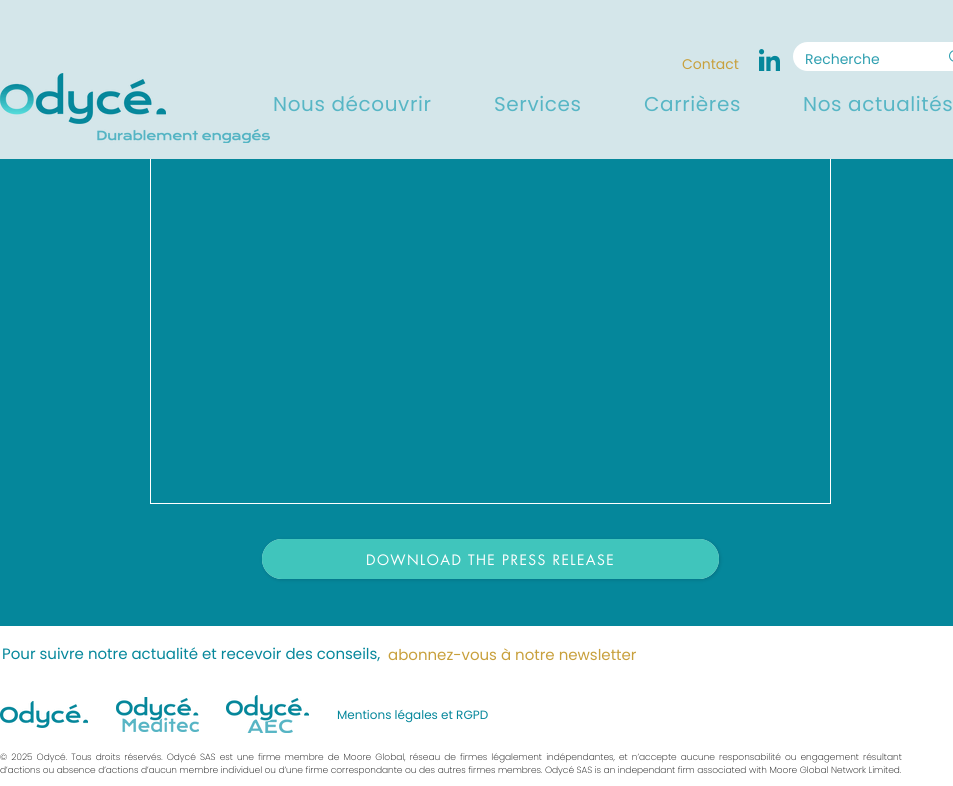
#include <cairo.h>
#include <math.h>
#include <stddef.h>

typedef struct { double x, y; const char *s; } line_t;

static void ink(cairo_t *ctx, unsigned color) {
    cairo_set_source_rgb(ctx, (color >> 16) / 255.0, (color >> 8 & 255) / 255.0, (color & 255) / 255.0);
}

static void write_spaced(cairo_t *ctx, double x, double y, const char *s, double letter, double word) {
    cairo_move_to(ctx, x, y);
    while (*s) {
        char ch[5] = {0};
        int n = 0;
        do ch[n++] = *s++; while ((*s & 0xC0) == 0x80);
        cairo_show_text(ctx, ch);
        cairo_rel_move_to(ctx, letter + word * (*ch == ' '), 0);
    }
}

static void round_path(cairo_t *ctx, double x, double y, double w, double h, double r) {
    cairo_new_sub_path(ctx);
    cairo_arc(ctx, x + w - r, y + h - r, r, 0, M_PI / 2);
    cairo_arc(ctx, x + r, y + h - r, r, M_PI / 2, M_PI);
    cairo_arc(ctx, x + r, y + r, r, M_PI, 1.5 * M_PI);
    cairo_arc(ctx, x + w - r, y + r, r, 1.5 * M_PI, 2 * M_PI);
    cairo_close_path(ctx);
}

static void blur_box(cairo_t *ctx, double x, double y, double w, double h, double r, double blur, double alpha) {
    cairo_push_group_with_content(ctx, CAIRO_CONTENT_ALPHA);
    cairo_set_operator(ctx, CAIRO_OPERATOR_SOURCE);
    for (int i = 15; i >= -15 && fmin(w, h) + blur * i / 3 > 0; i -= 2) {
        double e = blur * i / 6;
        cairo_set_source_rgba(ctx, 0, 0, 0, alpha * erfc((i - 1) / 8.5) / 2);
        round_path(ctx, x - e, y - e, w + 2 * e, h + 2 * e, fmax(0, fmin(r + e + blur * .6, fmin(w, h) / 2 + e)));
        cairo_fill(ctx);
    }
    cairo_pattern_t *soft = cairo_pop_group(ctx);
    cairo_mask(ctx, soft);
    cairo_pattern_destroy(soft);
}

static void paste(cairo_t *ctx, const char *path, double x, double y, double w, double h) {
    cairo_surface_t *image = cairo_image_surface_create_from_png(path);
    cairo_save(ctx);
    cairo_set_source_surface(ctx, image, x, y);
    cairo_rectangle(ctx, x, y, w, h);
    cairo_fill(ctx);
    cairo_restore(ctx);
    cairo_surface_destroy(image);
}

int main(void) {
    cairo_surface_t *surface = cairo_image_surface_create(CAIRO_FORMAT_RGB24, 953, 786);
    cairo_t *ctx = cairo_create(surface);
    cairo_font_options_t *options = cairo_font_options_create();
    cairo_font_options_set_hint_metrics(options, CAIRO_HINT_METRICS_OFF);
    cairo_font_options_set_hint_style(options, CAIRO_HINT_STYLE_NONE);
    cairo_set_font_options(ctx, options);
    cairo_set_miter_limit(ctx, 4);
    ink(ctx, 0xFFFFFF);
    cairo_paint(ctx);
    ink(ctx, 0x05879B);
    cairo_rectangle(ctx, 0, 159, 953, 467);
    cairo_fill(ctx);
    cairo_rectangle(ctx, 150.5, 120.5, 680, 383);
    ink(ctx, 0xFFFFFF);
    cairo_set_line_width(ctx, 1);
    cairo_stroke(ctx);
    ink(ctx, 0xD4E6EA);
    cairo_rectangle(ctx, 0, 0, 953, 159);
    cairo_fill(ctx);
    cairo_select_font_face(ctx, "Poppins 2", CAIRO_FONT_SLANT_NORMAL, CAIRO_FONT_WEIGHT_NORMAL);
    cairo_set_font_size(ctx, 14);
    ink(ctx, 0xC8A03C);
    cairo_move_to(ctx, 682, 69);
    cairo_show_text(ctx, "Contact");
    paste(ctx, "media/1.png", 759, 49, 21, 22);
    ink(ctx, 0xFFFFFF);
    round_path(ctx, 793, 42, 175, 29, 14.5);
    cairo_fill(ctx);
    cairo_select_font_face(ctx, "Poppins", CAIRO_FONT_SLANT_NORMAL, CAIRO_FONT_WEIGHT_NORMAL);
    ink(ctx, 0x2E9FB0);
    cairo_move_to(ctx, 805, 64);
    cairo_show_text(ctx, "Recherche");
    paste(ctx, "media/2.png", 949, 50, 4, 12);
    paste(ctx, "media/3.png", 0, 73, 166, 51);
    cairo_select_font_face(ctx, "Poppins 2", CAIRO_FONT_SLANT_NORMAL, CAIRO_FONT_WEIGHT_NORMAL);
    cairo_set_font_size(ctx, 20);
    ink(ctx, 0x57B6C5);
    {
        static const line_t items[] = {
            {273, 111, "Nous découvrir"},
            {494, 111, "Services"},
            {644, 111, "Carrières"},
            {803, 111, "Nos actualités"},
        };
        for (size_t i = 0; i < sizeof items / sizeof *items; i++) {
            write_spaced(ctx, items[i].x, items[i].y, items[i].s, 0.6, 0);
        }
    }
    paste(ctx, "media/4.png", 97, 129, 173, 14);
    ink(ctx, 0x000000);
    blur_box(ctx, 263, 540, 457, 40, 20, 2, 0.15);
    ink(ctx, 0xFFFDF4);
    round_path(ctx, 262, 539, 457, 40, 20);
    cairo_fill(ctx);
    cairo_set_source_rgba(ctx, 0, 0.698, 0.663, 0.75);
    round_path(ctx, 262, 539, 457, 40, 20);
    cairo_fill(ctx);
    cairo_select_font_face(ctx, "futura", CAIRO_FONT_SLANT_NORMAL, CAIRO_FONT_WEIGHT_NORMAL);
    cairo_set_font_size(ctx, 14);
    ink(ctx, 0xFFFFFF);
    write_spaced(ctx, 366, 565, "DOWNLOAD THE PRESS RELEASE", 1.4, 0);
    cairo_select_font_face(ctx, "Poppins", CAIRO_FONT_SLANT_NORMAL, CAIRO_FONT_WEIGHT_NORMAL);
    cairo_set_font_size(ctx, 15);
    ink(ctx, 0x05879B);
    cairo_move_to(ctx, 2, 659);
    cairo_show_text(ctx, "Pour suivre notre actualité et recevoir des conseils,");
    ink(ctx, 0xC8A03C);
    cairo_move_to(ctx, 388, 660);
    cairo_show_text(ctx, "abonnez-vous à notre newsletter");
    paste(ctx, "media/5.png", 0, 701, 88, 27);
    paste(ctx, "media/6.png", 116, 697, 83, 35);
    paste(ctx, "media/7.png", 226, 695, 83, 38);
    cairo_set_font_size(ctx, 12);
    ink(ctx, 0x05879B);
    cairo_move_to(ctx, 337, 719);
    cairo_show_text(ctx, "Mentions légales et RGPD");
    cairo_select_font_face(ctx, "Poppins ExtraLight", CAIRO_FONT_SLANT_NORMAL, CAIRO_FONT_WEIGHT_NORMAL);
    cairo_set_font_size(ctx, 9);
    ink(ctx, 0x000000);
    write_spaced(ctx, 0, 760, "© 2025 Odycé. Tous droits réservés. Odycé SAS est une firme membre de Moore Global, réseau de firmes légalement indépendantes, et n’accepte aucune responsabilité ou engagement résultant", 0, 1.6);
    cairo_move_to(ctx, 0, 773);
    cairo_show_text(ctx, "d’actions ou absence d’actions d’aucun membre individuel ou d’une firme correspondante ou des autres firmes membres. Odycé SAS is an independant firm associated with Moore Global Network Limited.");
    cairo_surface_write_to_png(surface, "image.png");
    cairo_font_options_destroy(options);
    cairo_destroy(ctx);
    cairo_surface_destroy(surface);
    return 0;
}
